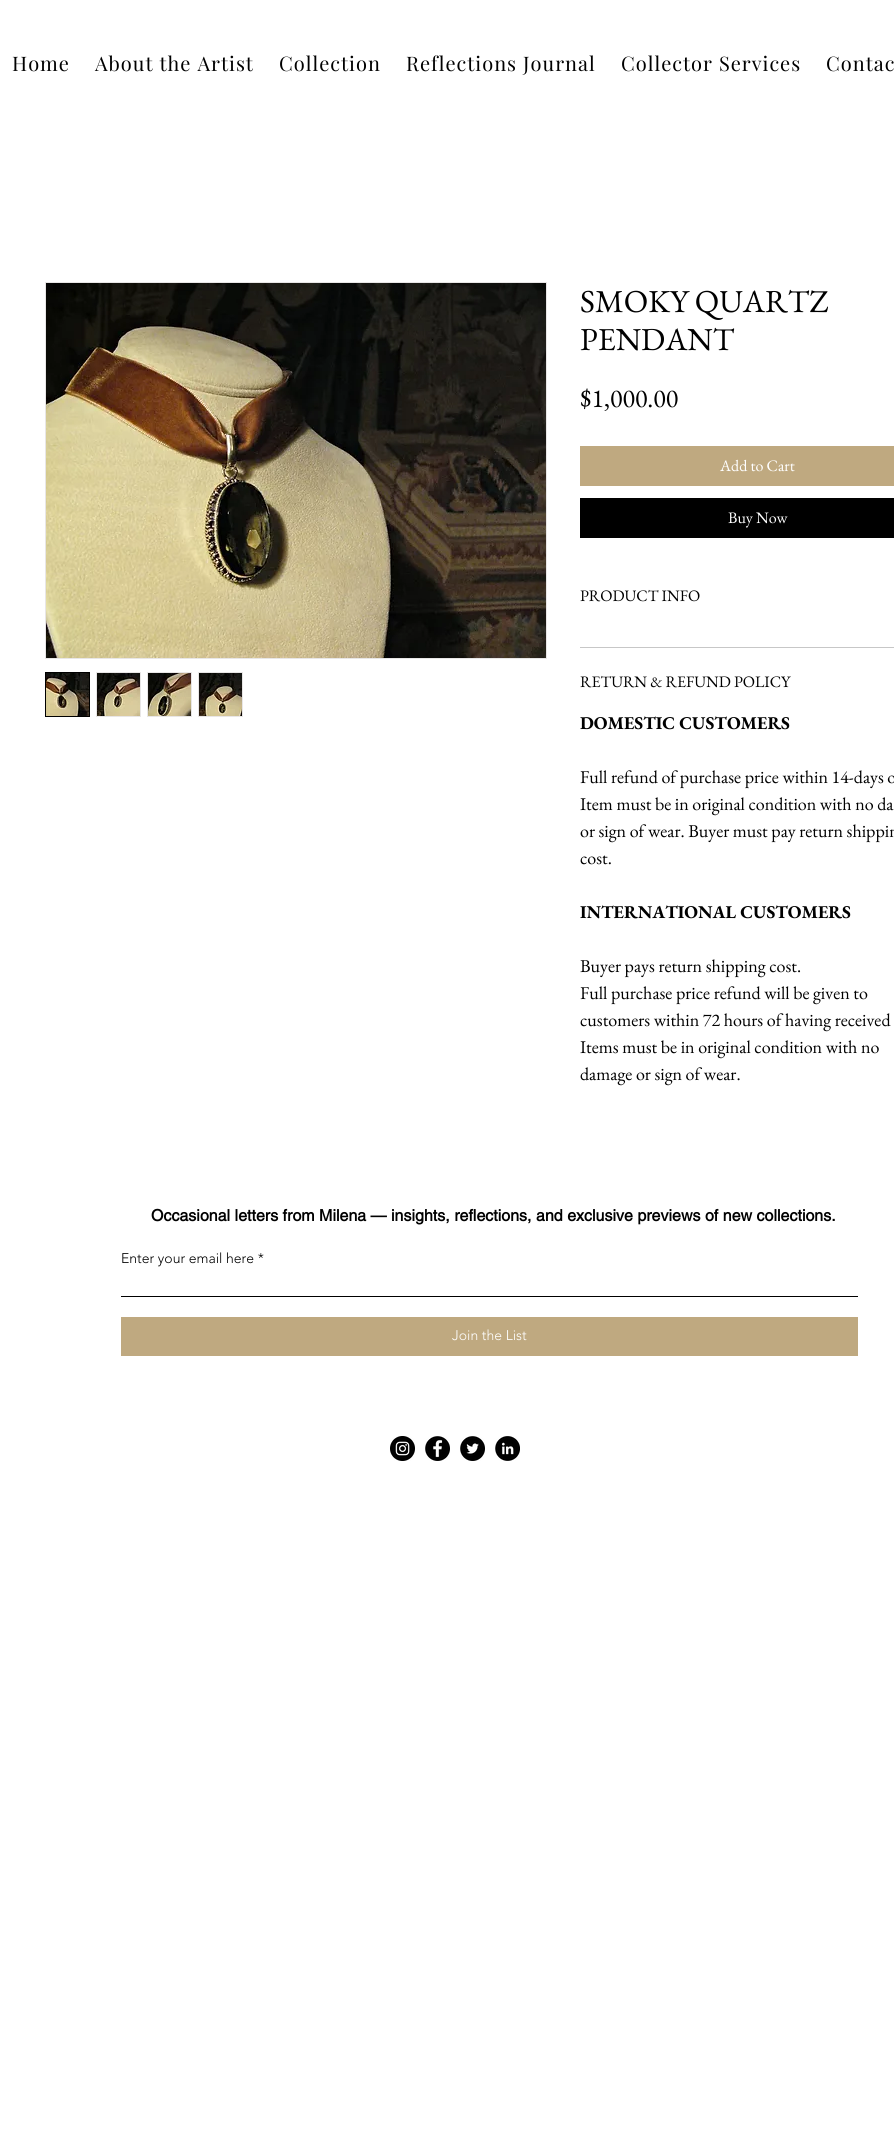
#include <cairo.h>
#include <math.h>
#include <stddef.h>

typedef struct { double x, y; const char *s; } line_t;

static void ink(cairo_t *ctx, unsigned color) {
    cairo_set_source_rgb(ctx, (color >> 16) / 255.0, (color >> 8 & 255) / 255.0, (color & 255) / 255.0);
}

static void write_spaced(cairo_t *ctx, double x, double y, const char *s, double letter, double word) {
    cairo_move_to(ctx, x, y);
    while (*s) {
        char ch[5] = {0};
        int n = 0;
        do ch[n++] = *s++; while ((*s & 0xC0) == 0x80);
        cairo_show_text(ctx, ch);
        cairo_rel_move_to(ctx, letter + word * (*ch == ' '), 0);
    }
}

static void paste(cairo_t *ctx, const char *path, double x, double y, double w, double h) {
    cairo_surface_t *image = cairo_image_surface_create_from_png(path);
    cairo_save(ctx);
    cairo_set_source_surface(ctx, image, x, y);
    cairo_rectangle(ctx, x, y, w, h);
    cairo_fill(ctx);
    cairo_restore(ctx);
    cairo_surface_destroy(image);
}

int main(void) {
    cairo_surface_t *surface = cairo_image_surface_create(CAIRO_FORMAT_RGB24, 894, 2141);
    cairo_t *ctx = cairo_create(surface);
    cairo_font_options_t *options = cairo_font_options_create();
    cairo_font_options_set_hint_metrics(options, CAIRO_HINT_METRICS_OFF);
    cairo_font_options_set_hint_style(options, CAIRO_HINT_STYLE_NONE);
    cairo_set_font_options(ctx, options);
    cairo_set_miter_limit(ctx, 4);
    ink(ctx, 0xFFFFFF);
    cairo_paint(ctx);
    cairo_select_font_face(ctx, "Playfair Display", CAIRO_FONT_SLANT_NORMAL, CAIRO_FONT_WEIGHT_NORMAL);
    cairo_set_font_size(ctx, 20);
    ink(ctx, 0x000000);
    {
        static const line_t items[] = {
            {12, 71, "Home"},
            {95, 71, "About the Artist"},
            {279, 71, "Collection"},
            {406, 71, "Reflections Journal"},
            {621, 71, "Collector Services"},
            {826, 71, "Contac"},
        };
        for (size_t i = 0; i < sizeof items / sizeof *items; i++) {
            write_spaced(ctx, items[i].x, items[i].y, items[i].s, 1, 0);
        }
    }
    cairo_rectangle(ctx, 45.5, 282.5, 501, 376);
    ink(ctx, 0xE8E6E6);
    cairo_set_line_width(ctx, 1);
    cairo_stroke(ctx);
    paste(ctx, "media/1.png", 46, 283, 500, 375);
    cairo_rectangle(ctx, 45.5, 672.5, 44, 44);
    ink(ctx, 0x000000);
    cairo_stroke(ctx);
    paste(ctx, "media/2.png", 46, 673, 43, 43);
    cairo_rectangle(ctx, 96.5, 672.5, 44, 44);
    ink(ctx, 0xE8E6E6);
    cairo_stroke(ctx);
    paste(ctx, "media/3.png", 97, 673, 43, 43);
    cairo_rectangle(ctx, 147.5, 672.5, 44, 44);
    cairo_stroke(ctx);
    paste(ctx, "media/4.png", 148, 673, 43, 43);
    cairo_rectangle(ctx, 198.5, 672.5, 44, 44);
    cairo_stroke(ctx);
    paste(ctx, "media/5.png", 199, 673, 43, 43);
    cairo_select_font_face(ctx, "EB Garamond", CAIRO_FONT_SLANT_NORMAL, CAIRO_FONT_WEIGHT_NORMAL);
    cairo_set_font_size(ctx, 32);
    ink(ctx, 0x000000);
    cairo_move_to(ctx, 580, 312);
    cairo_show_text(ctx, "SMOKY QUARTZ");
    cairo_move_to(ctx, 580, 350);
    cairo_show_text(ctx, "PENDANT");
    cairo_set_font_size(ctx, 26);
    cairo_move_to(ctx, 580, 407);
    cairo_show_text(ctx, "$1,000.00");
    ink(ctx, 0xBFA980);
    cairo_rectangle(ctx, 580, 446, 314, 40);
    cairo_fill(ctx);
    cairo_set_font_size(ctx, 16);
    ink(ctx, 0xFFFFFF);
    cairo_move_to(ctx, 720, 471);
    cairo_show_text(ctx, "Add to Cart");
    ink(ctx, 0x000000);
    cairo_rectangle(ctx, 580, 498, 314, 40);
    cairo_fill(ctx);
    ink(ctx, 0xFFFFFF);
    cairo_move_to(ctx, 728, 523);
    cairo_show_text(ctx, "Buy Now");
    ink(ctx, 0xC7C7C7);
    cairo_rectangle(ctx, 580, 647, 314, 1);
    cairo_fill(ctx);
    ink(ctx, 0x000000);
    cairo_move_to(ctx, 580, 601);
    cairo_show_text(ctx, "PRODUCT INFO");
    cairo_move_to(ctx, 580, 687);
    cairo_show_text(ctx, "RETURN & REFUND POLICY");
    cairo_select_font_face(ctx, "EB Garamond", CAIRO_FONT_SLANT_NORMAL, CAIRO_FONT_WEIGHT_BOLD);
    cairo_set_font_size(ctx, 18);
    cairo_move_to(ctx, 580, 729);
    cairo_show_text(ctx, "DOMESTIC CUSTOMERS");
    cairo_select_font_face(ctx, "EB Garamond", CAIRO_FONT_SLANT_NORMAL, CAIRO_FONT_WEIGHT_NORMAL);
    {
        static const line_t items[] = {
            {580, 783, "Full refund of purchase price within 14-days o"},
            {580, 810, "Item must be in original condition with no da"},
            {580, 837, "or sign of wear. Buyer must pay return shippin"},
            {580, 864, "cost."},
        };
        for (size_t i = 0; i < sizeof items / sizeof *items; i++) {
            cairo_move_to(ctx, items[i].x, items[i].y);
            cairo_show_text(ctx, items[i].s);
        }
    }
    cairo_select_font_face(ctx, "EB Garamond", CAIRO_FONT_SLANT_NORMAL, CAIRO_FONT_WEIGHT_BOLD);
    cairo_move_to(ctx, 580, 918);
    cairo_show_text(ctx, "INTERNATIONAL CUSTOMERS");
    cairo_select_font_face(ctx, "EB Garamond", CAIRO_FONT_SLANT_NORMAL, CAIRO_FONT_WEIGHT_NORMAL);
    {
        static const line_t items[] = {
            {580, 972, "Buyer pays return shipping cost."},
            {580, 999, "Full purchase price refund will be given to"},
            {580, 1026, "customers within 72 hours of having received"},
            {580, 1053, "Items must be in original condition with no"},
            {580, 1080, "damage or sign of wear."},
        };
        for (size_t i = 0; i < sizeof items / sizeof *items; i++) {
            cairo_move_to(ctx, items[i].x, items[i].y);
            cairo_show_text(ctx, items[i].s);
        }
    }
    cairo_select_font_face(ctx, "helvetica", CAIRO_FONT_SLANT_NORMAL, CAIRO_FONT_WEIGHT_BOLD);
    cairo_set_font_size(ctx, 16);
    cairo_move_to(ctx, 151, 1221);
    cairo_show_text(ctx, "Occasional letters from Milena — insights, reflections, and exclusive previews of new collections.");
    cairo_select_font_face(ctx, "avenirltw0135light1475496 Light", CAIRO_FONT_SLANT_NORMAL, CAIRO_FONT_WEIGHT_NORMAL);
    cairo_set_font_size(ctx, 14);
    cairo_move_to(ctx, 121, 1263);
    cairo_show_text(ctx, "Enter your email here *");
    cairo_rectangle(ctx, 121, 1296, 737, 1);
    cairo_fill(ctx);
    ink(ctx, 0xBFA980);
    cairo_rectangle(ctx, 121, 1317, 737, 39);
    cairo_fill(ctx);
    ink(ctx, 0xFFFFFF);
    cairo_move_to(ctx, 452, 1340);
    cairo_show_text(ctx, "Join the List");
    paste(ctx, "media/6.png", 390, 1436, 25, 25);
    paste(ctx, "media/7.png", 425, 1436, 25, 25);
    paste(ctx, "media/8.png", 460, 1436, 25, 25);
    paste(ctx, "media/9.png", 495, 1436, 25, 25);
    cairo_surface_write_to_png(surface, "image.png");
    cairo_font_options_destroy(options);
    cairo_destroy(ctx);
    cairo_surface_destroy(surface);
    return 0;
}
